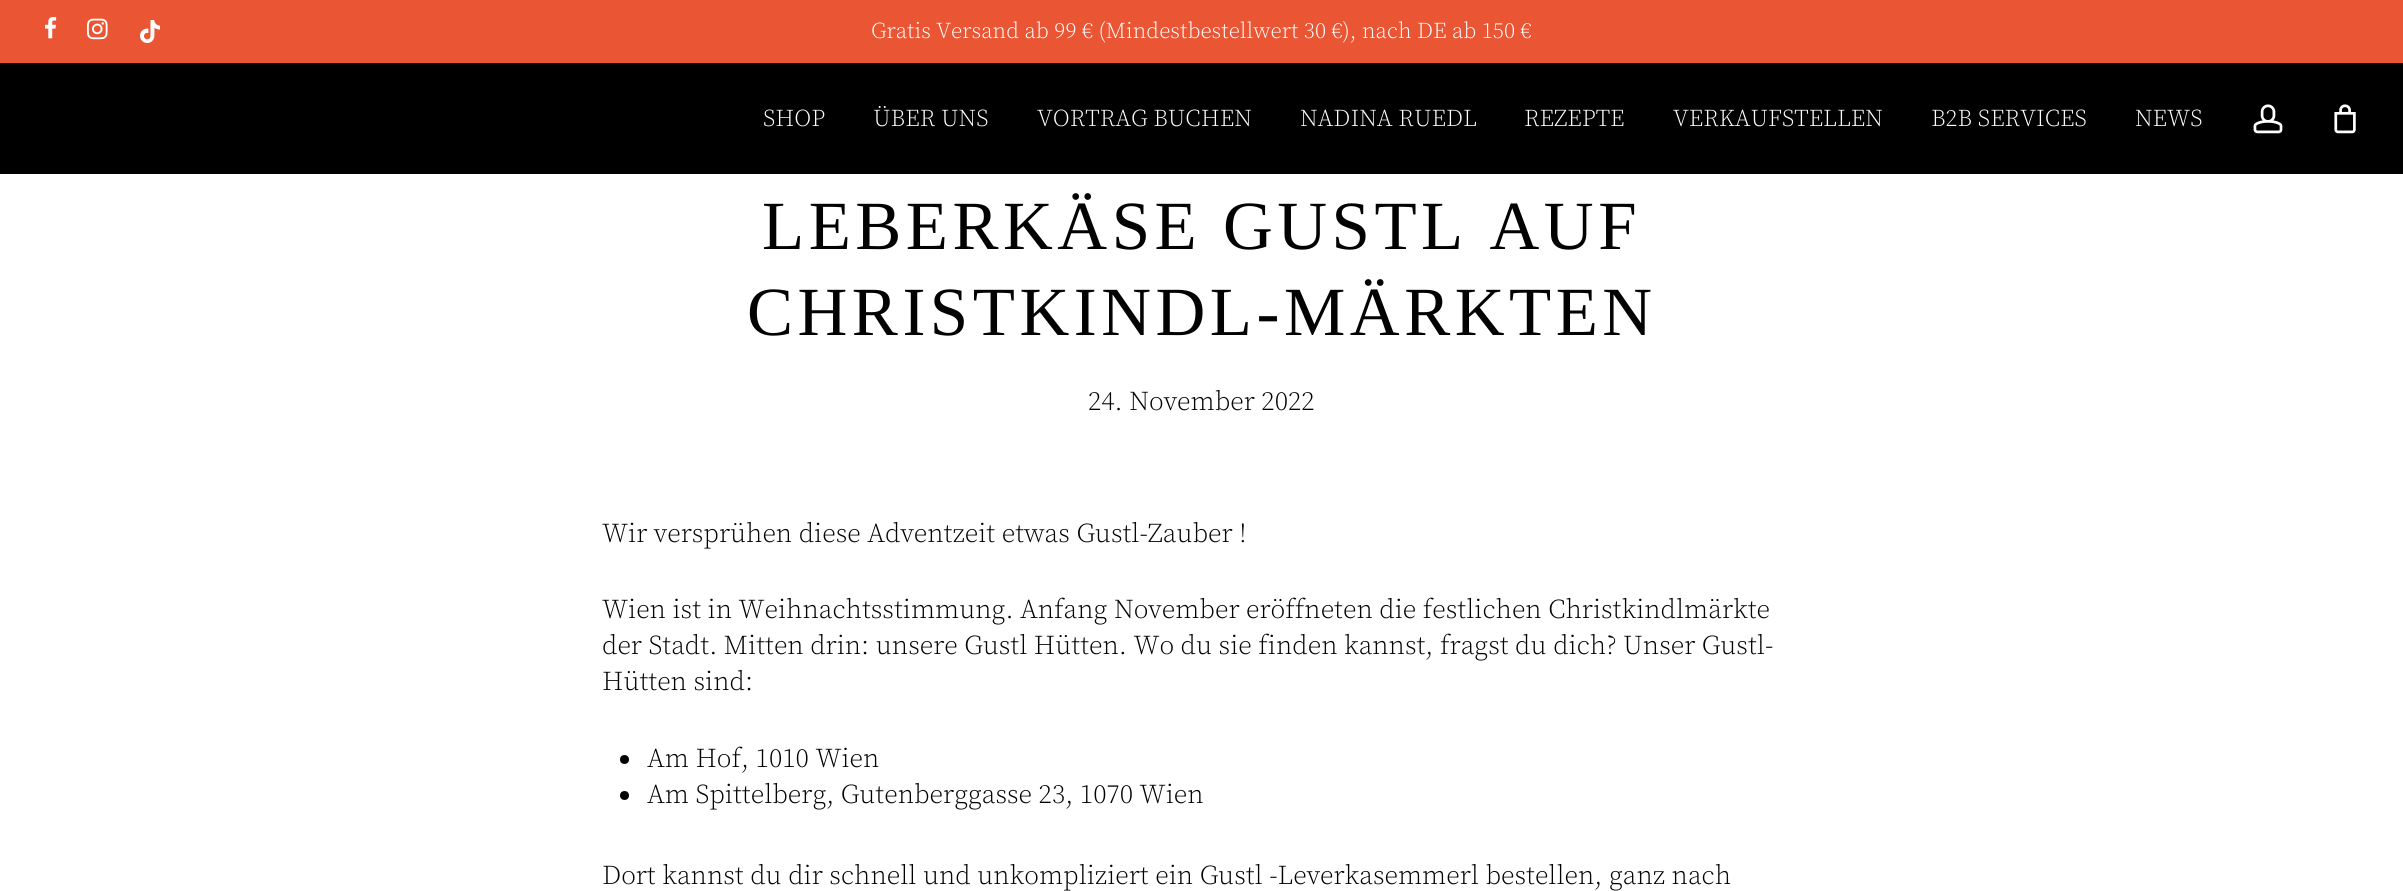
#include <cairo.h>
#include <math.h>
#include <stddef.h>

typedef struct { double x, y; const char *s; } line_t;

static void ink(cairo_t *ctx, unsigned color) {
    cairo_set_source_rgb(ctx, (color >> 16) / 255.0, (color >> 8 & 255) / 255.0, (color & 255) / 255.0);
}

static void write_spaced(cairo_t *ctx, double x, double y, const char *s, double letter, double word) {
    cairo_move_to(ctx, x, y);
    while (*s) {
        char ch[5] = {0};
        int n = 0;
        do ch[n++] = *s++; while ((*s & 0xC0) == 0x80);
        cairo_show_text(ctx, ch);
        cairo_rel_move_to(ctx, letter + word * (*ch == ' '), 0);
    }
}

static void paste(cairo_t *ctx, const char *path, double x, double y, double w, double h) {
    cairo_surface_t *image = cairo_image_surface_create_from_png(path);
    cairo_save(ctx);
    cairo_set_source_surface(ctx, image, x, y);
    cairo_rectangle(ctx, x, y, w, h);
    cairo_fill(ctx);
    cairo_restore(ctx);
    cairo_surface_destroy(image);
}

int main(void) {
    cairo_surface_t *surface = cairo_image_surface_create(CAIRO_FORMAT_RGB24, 2403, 891);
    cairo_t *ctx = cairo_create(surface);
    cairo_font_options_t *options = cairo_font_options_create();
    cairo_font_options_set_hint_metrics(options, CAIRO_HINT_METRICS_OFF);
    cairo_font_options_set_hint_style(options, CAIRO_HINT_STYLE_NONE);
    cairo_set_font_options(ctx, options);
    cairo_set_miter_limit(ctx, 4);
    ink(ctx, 0xFFFFFF);
    cairo_paint(ctx);
    ink(ctx, 0x000000);
    cairo_rectangle(ctx, 0, 63, 2403, 111);
    cairo_fill(ctx);
    ink(ctx, 0xEA5534);
    cairo_rectangle(ctx, 0, 0, 2403, 63);
    cairo_fill(ctx);
    paste(ctx, "media/1.png", 45, 16, 12, 23);
    paste(ctx, "media/2.png", 87, 18, 21, 22);
    paste(ctx, "media/3.png", 140, 20, 20, 23);
    cairo_select_font_face(ctx, "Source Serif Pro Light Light", CAIRO_FONT_SLANT_NORMAL, CAIRO_FONT_WEIGHT_NORMAL);
    cairo_set_font_size(ctx, 22.5);
    ink(ctx, 0xFFFFFF);
    cairo_move_to(ctx, 871, 38);
    cairo_show_text(ctx, "Gratis Versand ab 99 € (Mindestbestellwert 30 €), nach DE ab 150 €");
    cairo_set_font_size(ctx, 24);
    {
        static const line_t items[] = {
            {763, 126, "SHOP"},
            {873, 126, "ÜBER UNS"},
            {1037, 126, "VORTRAG BUCHEN"},
            {1300, 126, "NADINA RUEDL"},
            {1524, 126, "REZEPTE"},
            {1673, 126, "VERKAUFSTELLEN"},
            {1931, 126, "B2B SERVICES"},
            {2135, 126, "NEWS"},
        };
        for (size_t i = 0; i < sizeof items / sizeof *items; i++) {
            cairo_move_to(ctx, items[i].x, items[i].y);
            cairo_show_text(ctx, items[i].s);
        }
    }
    paste(ctx, "media/4.png", 2253, 104, 30, 30);
    paste(ctx, "media/5.png", 2334, 104, 22, 30);
    cairo_select_font_face(ctx, "Liberation Serif", CAIRO_FONT_SLANT_NORMAL, CAIRO_FONT_WEIGHT_NORMAL);
    cairo_set_font_size(ctx, 69);
    ink(ctx, 0x020202);
    write_spaced(ctx, 762, 249, "LEBERKÄSE GUSTL AUF", 4.5, 0);
    write_spaced(ctx, 747, 335, "CHRISTKINDL-MÄRKTEN", 4.5, 0);
    cairo_select_font_face(ctx, "Source Serif Pro Light Light", CAIRO_FONT_SLANT_NORMAL, CAIRO_FONT_WEIGHT_NORMAL);
    cairo_set_font_size(ctx, 27);
    {
        static const line_t items[] = {
            {1088, 410, "24. November 2022"},
            {602, 542, "Wir versprühen diese Adventzeit etwas Gustl-Zauber !"},
            {602, 618, "Wien ist in Weihnachtsstimmung. Anfang November eröffneten die festlichen Christkindlmärkte"},
            {602, 654, "der Stadt. Mitten drin: unsere Gustl Hütten. Wo du sie finden kannst, fragst du dich? Unser Gustl-"},
            {602, 690, "Hütten sind:"},
        };
        for (size_t i = 0; i < sizeof items / sizeof *items; i++) {
            cairo_move_to(ctx, items[i].x, items[i].y);
            cairo_show_text(ctx, items[i].s);
        }
    }
    cairo_new_path(ctx);
    cairo_arc(ctx, 624.5, 759.5, 4.5, 0, 2 * M_PI);
    cairo_fill(ctx);
    cairo_move_to(ctx, 647, 767);
    cairo_show_text(ctx, "Am Hof, 1010 Wien");
    cairo_new_path(ctx);
    cairo_arc(ctx, 624.5, 795.5, 4.5, 0, 2 * M_PI);
    cairo_fill(ctx);
    cairo_move_to(ctx, 647, 803);
    cairo_show_text(ctx, "Am Spittelberg, Gutenberggasse 23, 1070 Wien");
    cairo_move_to(ctx, 602, 884);
    cairo_show_text(ctx, "Dort kannst du dir schnell und unkompliziert ein Gustl -Leverkasemmerl bestellen, ganz nach");
    cairo_surface_write_to_png(surface, "image.png");
    cairo_font_options_destroy(options);
    cairo_destroy(ctx);
    cairo_surface_destroy(surface);
    return 0;
}
